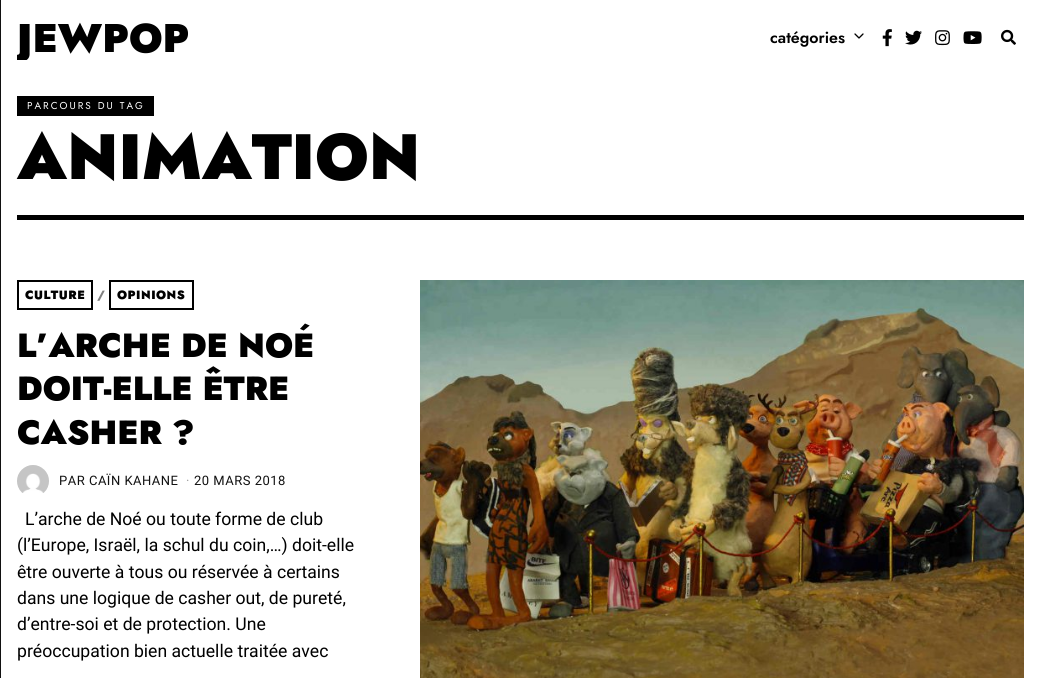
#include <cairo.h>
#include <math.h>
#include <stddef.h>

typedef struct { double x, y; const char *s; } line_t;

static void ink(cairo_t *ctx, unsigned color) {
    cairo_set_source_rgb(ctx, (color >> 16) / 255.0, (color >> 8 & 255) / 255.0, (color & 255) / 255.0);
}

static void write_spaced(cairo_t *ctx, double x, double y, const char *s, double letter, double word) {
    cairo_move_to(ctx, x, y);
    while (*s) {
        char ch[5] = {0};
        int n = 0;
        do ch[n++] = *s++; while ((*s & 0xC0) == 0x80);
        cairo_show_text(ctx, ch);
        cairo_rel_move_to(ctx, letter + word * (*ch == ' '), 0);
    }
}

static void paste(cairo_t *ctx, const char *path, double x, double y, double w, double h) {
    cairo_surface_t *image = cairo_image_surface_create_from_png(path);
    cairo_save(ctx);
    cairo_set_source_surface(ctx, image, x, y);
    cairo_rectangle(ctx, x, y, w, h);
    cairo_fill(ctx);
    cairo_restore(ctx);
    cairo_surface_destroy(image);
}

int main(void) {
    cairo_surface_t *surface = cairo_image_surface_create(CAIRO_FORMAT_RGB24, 1040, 678);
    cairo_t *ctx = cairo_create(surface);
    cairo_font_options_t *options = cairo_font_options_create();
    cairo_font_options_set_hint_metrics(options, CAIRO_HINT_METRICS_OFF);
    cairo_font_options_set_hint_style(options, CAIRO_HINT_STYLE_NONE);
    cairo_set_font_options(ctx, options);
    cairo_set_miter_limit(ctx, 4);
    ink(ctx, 0xFFFFFF);
    cairo_paint(ctx);
    ink(ctx, 0x111111);
    cairo_rectangle(ctx, 0, 0, 1, 678);
    cairo_fill(ctx);
    cairo_save(ctx);
    cairo_rectangle(ctx, 17, 16, 172, 44);
    cairo_clip(ctx);
    cairo_select_font_face(ctx, "Jost Black", CAIRO_FONT_SLANT_NORMAL, CAIRO_FONT_WEIGHT_NORMAL);
    cairo_set_font_size(ctx, 40);
    ink(ctx, 0x000000);
    cairo_move_to(ctx, 17, 52);
    cairo_show_text(ctx, "JEWPOP");
    cairo_restore(ctx);
    cairo_select_font_face(ctx, "Jost SemiBold", CAIRO_FONT_SLANT_NORMAL, CAIRO_FONT_WEIGHT_NORMAL);
    cairo_set_font_size(ctx, 16);
    ink(ctx, 0x000000);
    cairo_move_to(ctx, 770, 43);
    cairo_show_text(ctx, "catégories");
    paste(ctx, "media/1.png", 854, 33, 10, 6);
    paste(ctx, "media/2.png", 882, 29, 10, 18);
    paste(ctx, "media/3.png", 905, 30, 17, 15);
    paste(ctx, "media/4.png", 935, 30, 15, 16);
    paste(ctx, "media/5.png", 963, 31, 19, 13);
    paste(ctx, "media/6.png", 1001, 29, 15, 16);
    cairo_rectangle(ctx, 17, 215, 1007, 5);
    cairo_fill(ctx);
    cairo_rectangle(ctx, 17, 96, 137, 20);
    cairo_fill(ctx);
    cairo_select_font_face(ctx, "Jost", CAIRO_FONT_SLANT_NORMAL, CAIRO_FONT_WEIGHT_NORMAL);
    cairo_set_font_size(ctx, 10);
    ink(ctx, 0xFFFFFF);
    write_spaced(ctx, 27, 109, "PARCOURS DU TAG", 2, 0);
    cairo_select_font_face(ctx, "Jost Black", CAIRO_FONT_SLANT_NORMAL, CAIRO_FONT_WEIGHT_NORMAL);
    cairo_set_font_size(ctx, 64);
    ink(ctx, 0x000000);
    cairo_move_to(ctx, 17, 179);
    cairo_show_text(ctx, "ANIMATION");
    cairo_rectangle(ctx, 18, 281, 74, 28);
    cairo_stroke(ctx);
    cairo_set_font_size(ctx, 12);
    write_spaced(ctx, 25, 299, "CULTURE", 0.5, 0);
    ink(ctx, 0x808080);
    write_spaced(ctx, 97, 299, "/", 0.5, 0);
    cairo_rectangle(ctx, 110, 281, 83, 28);
    ink(ctx, 0x000000);
    cairo_stroke(ctx);
    write_spaced(ctx, 117, 299, "OPINIONS", 0.5, 0);
    cairo_set_font_size(ctx, 33.5);
    {
        static const line_t items[] = {
            {17, 357, "L’ARCHE DE NOÉ"},
            {17, 400, "DOIT-ELLE ÊTRE"},
            {17, 444, "CASHER ?"},
        };
        for (size_t i = 0; i < sizeof items / sizeof *items; i++) {
            cairo_move_to(ctx, items[i].x, items[i].y);
            cairo_show_text(ctx, items[i].s);
        }
    }
    paste(ctx, "media/7.png", 17, 465, 32, 28);
    cairo_select_font_face(ctx, "Roboto", CAIRO_FONT_SLANT_NORMAL, CAIRO_FONT_WEIGHT_NORMAL);
    cairo_set_font_size(ctx, 13);
    ink(ctx, 0x111111);
    write_spaced(ctx, 59, 485, "PAR CAÏN KAHANE", 0.5, 0);
    ink(ctx, 0xA0A0A0);
    write_spaced(ctx, 186, 485, "·", 0.5, 0);
    ink(ctx, 0x111111);
    write_spaced(ctx, 194, 485, "20 MARS 2018", 0.5, 0);
    cairo_set_font_size(ctx, 17.6);
    ink(ctx, 0x000000);
    {
        static const line_t items[] = {
            {25, 525, "L’arche de Noé ou toute forme de club"},
            {17, 551, "(l’Europe, Israël, la schul du coin,…) doit-elle"},
            {17, 578, "être ouverte à tous ou réservée à certains"},
            {17, 604, "dans une logique de casher out, de pureté,"},
            {17, 630, "d’entre-soi et de protection. Une"},
            {17, 657, "préoccupation bien actuelle traitée avec"},
        };
        for (size_t i = 0; i < sizeof items / sizeof *items; i++) {
            cairo_move_to(ctx, items[i].x, items[i].y);
            cairo_show_text(ctx, items[i].s);
        }
    }
    paste(ctx, "media/8.png", 420, 280, 604, 398);
    cairo_surface_write_to_png(surface, "image.png");
    cairo_font_options_destroy(options);
    cairo_destroy(ctx);
    cairo_surface_destroy(surface);
    return 0;
}
